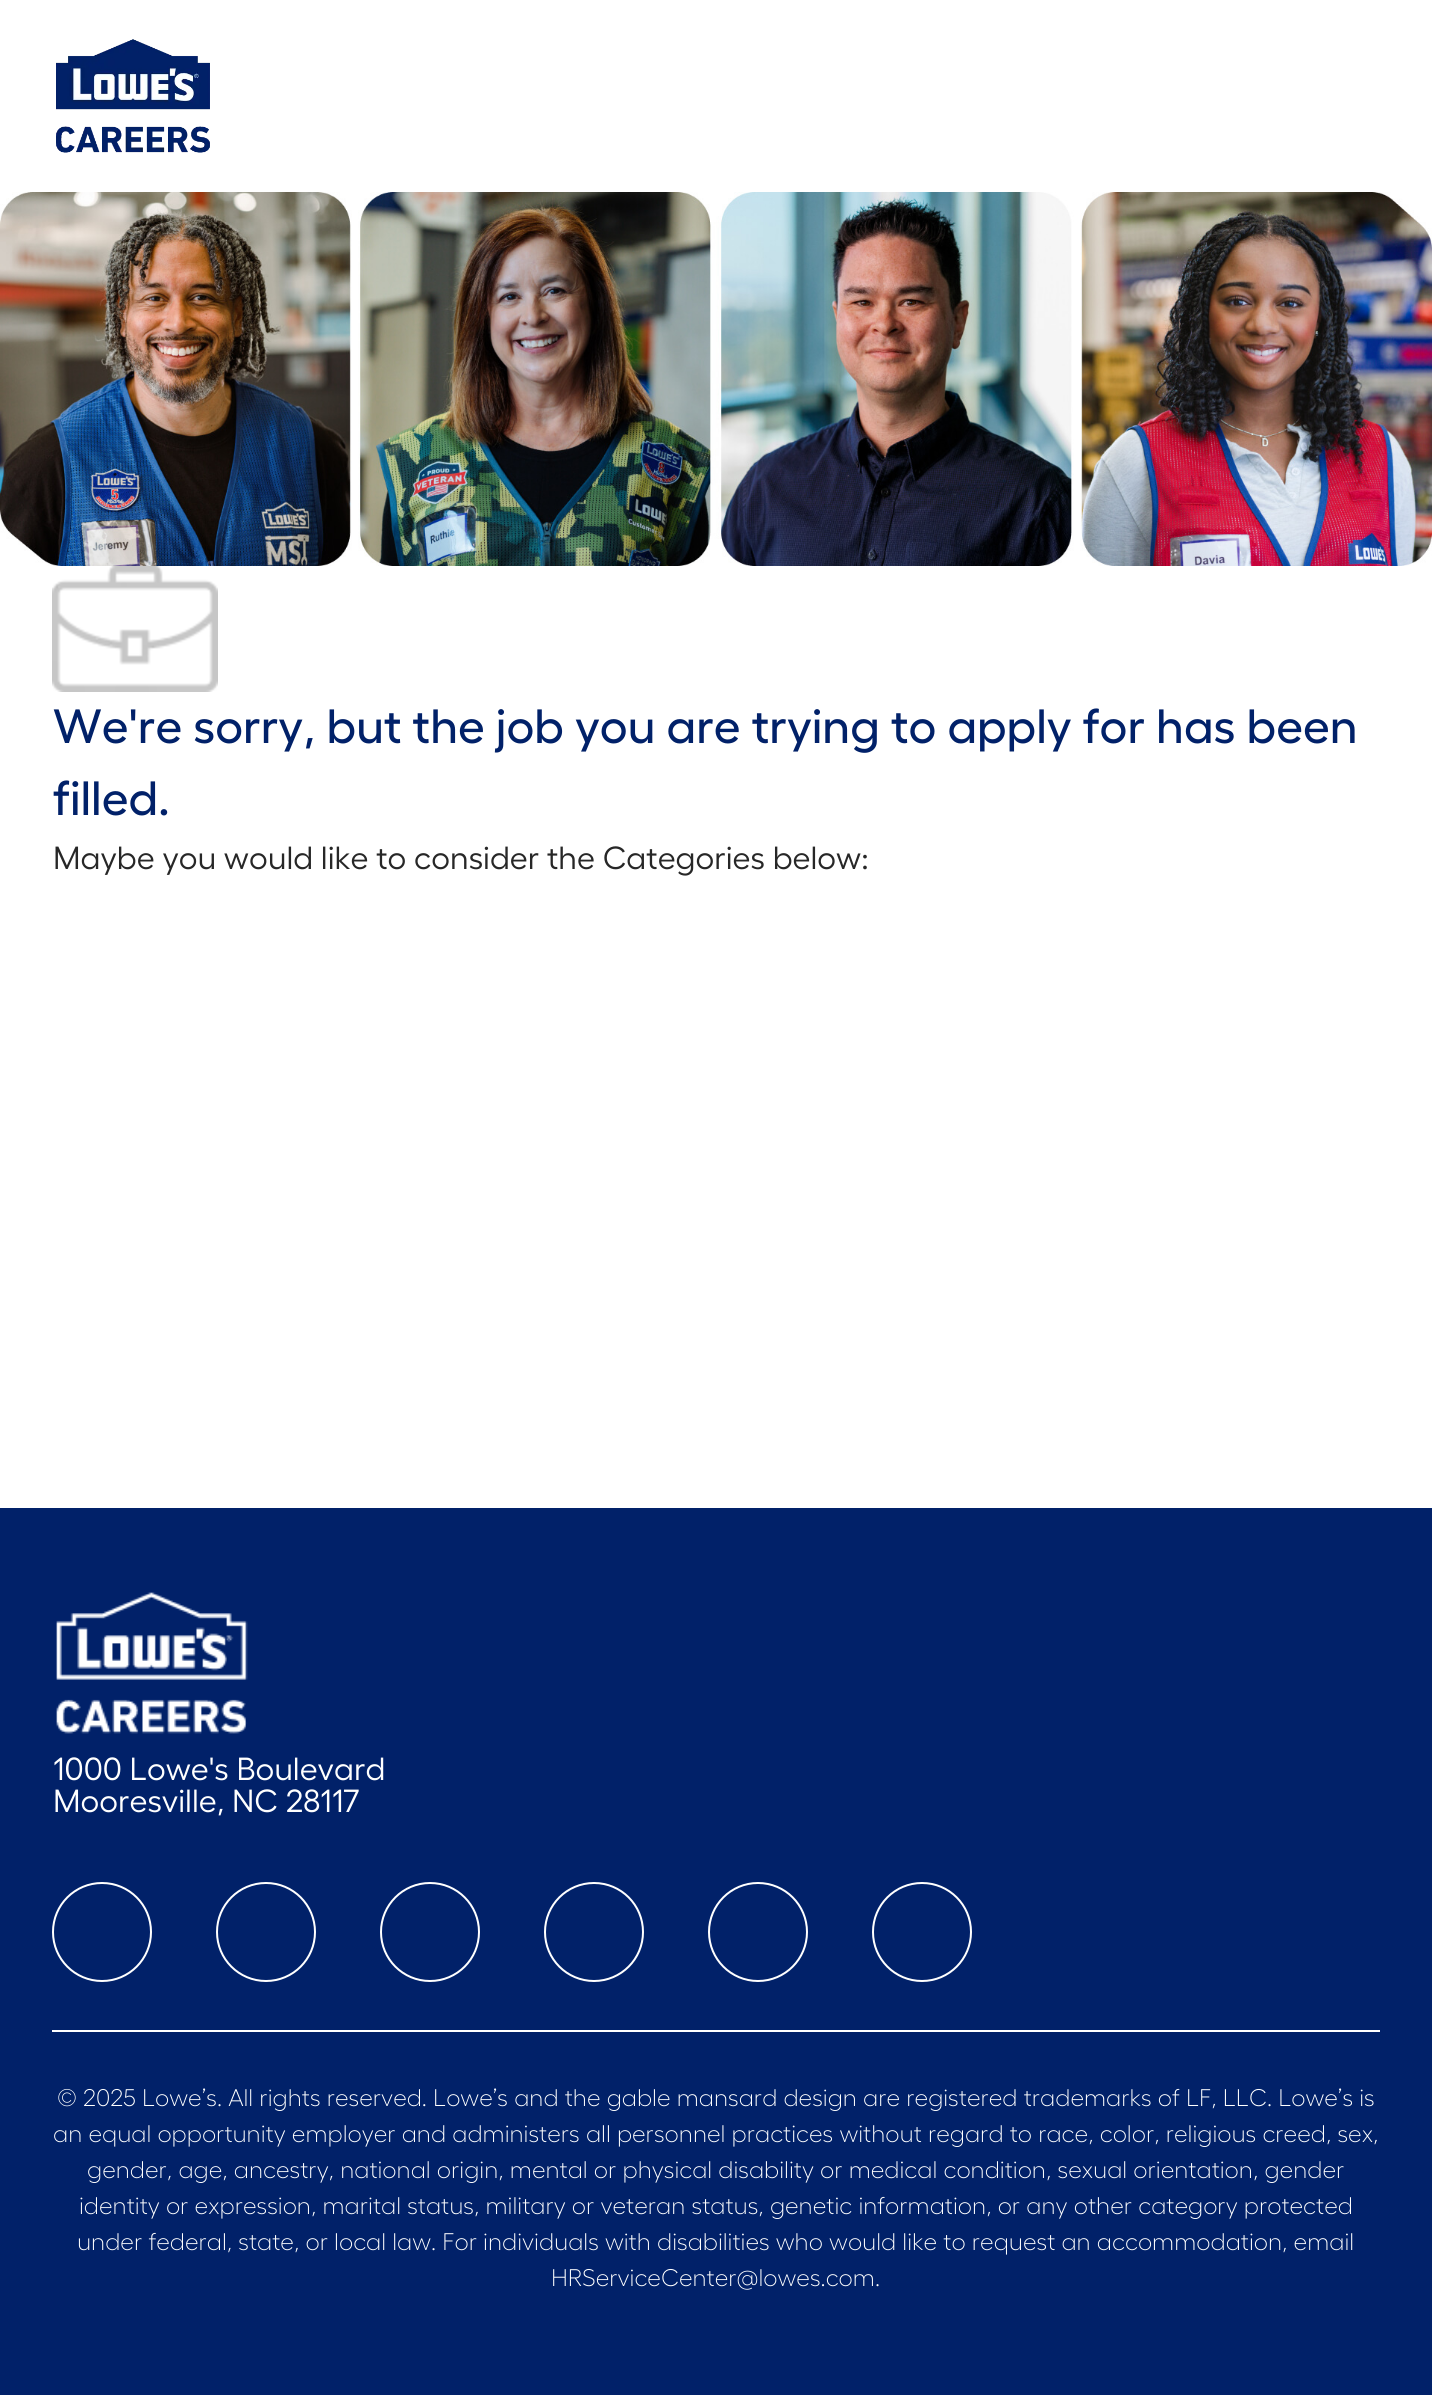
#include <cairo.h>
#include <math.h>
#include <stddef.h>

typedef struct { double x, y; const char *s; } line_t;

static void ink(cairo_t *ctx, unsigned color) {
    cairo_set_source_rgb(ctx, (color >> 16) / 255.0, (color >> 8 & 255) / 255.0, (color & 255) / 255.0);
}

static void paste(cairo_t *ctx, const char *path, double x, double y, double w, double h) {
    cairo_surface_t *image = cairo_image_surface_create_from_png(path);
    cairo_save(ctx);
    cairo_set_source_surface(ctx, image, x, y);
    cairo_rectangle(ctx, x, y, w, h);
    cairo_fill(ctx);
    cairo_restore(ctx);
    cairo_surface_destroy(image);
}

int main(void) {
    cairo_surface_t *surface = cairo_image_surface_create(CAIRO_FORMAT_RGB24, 1432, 2395);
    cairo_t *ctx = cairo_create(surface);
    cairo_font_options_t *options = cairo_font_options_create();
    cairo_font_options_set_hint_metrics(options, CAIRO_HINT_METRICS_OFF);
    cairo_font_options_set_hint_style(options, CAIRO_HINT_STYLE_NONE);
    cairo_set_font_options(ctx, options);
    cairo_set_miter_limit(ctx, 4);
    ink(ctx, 0xFFFFFF);
    cairo_paint(ctx);
    paste(ctx, "media/1.png", 56, 39, 154, 114);
    paste(ctx, "media/2.png", 0, 192, 1432, 374);
    paste(ctx, "media/3.png", 52, 566, 166, 126);
    cairo_select_font_face(ctx, "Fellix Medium", CAIRO_FONT_SLANT_NORMAL, CAIRO_FONT_WEIGHT_NORMAL);
    cairo_set_font_size(ctx, 48);
    ink(ctx, 0x012169);
    cairo_move_to(ctx, 53, 743);
    cairo_show_text(ctx, "We're sorry, but the job you are trying to apply for has been");
    cairo_move_to(ctx, 53, 815);
    cairo_show_text(ctx, "filled.");
    cairo_select_font_face(ctx, "Fellix", CAIRO_FONT_SLANT_NORMAL, CAIRO_FONT_WEIGHT_NORMAL);
    cairo_set_font_size(ctx, 32);
    ink(ctx, 0x272727);
    cairo_move_to(ctx, 53, 869);
    cairo_show_text(ctx, "Maybe you would like to consider the Categories below:");
    ink(ctx, 0x012169);
    cairo_rectangle(ctx, 0, 1508, 1432, 887);
    cairo_fill(ctx);
    ink(ctx, 0xFFFFFF);
    cairo_rectangle(ctx, 52, 2030, 1328, 2);
    cairo_fill(ctx);
    paste(ctx, "media/4.png", 56, 1592, 192, 142);
    cairo_move_to(ctx, 53, 1780);
    cairo_show_text(ctx, "1000 Lowe's Boulevard");
    cairo_move_to(ctx, 53, 1812);
    cairo_show_text(ctx, "Mooresville, NC 28117");
    cairo_new_path(ctx);
    cairo_arc(ctx, 102, 1932, 49, 0, 2 * M_PI);
    cairo_stroke(ctx);
    cairo_arc(ctx, 266, 1932, 49, 0, 2 * M_PI);
    cairo_stroke(ctx);
    cairo_arc(ctx, 430, 1932, 49, 0, 2 * M_PI);
    cairo_stroke(ctx);
    cairo_arc(ctx, 594, 1932, 49, 0, 2 * M_PI);
    cairo_stroke(ctx);
    cairo_arc(ctx, 758, 1932, 49, 0, 2 * M_PI);
    cairo_stroke(ctx);
    cairo_arc(ctx, 922, 1932, 49, 0, 2 * M_PI);
    cairo_stroke(ctx);
    cairo_select_font_face(ctx, "Fellix Light", CAIRO_FONT_SLANT_NORMAL, CAIRO_FONT_WEIGHT_NORMAL);
    cairo_set_font_size(ctx, 24);
    {
        static const line_t items[] = {
            {57, 2106, "© 2025 Lowe’s. All rights reserved. Lowe’s and the gable mansard design are registered trademarks of LF, LLC. Lowe’s is"},
            {53, 2142, "an equal opportunity employer and administers all personnel practices without regard to race, color, religious creed, sex,"},
            {87, 2178, "gender, age, ancestry, national origin, mental or physical disability or medical condition, sexual orientation, gender"},
            {79, 2214, "identity or expression, marital status, military or veteran status, genetic information, or any other category protected"},
            {77, 2250, "under federal, state, or local law. For individuals with disabilities who would like to request an accommodation, email"},
            {551, 2286, "HRServiceCenter@lowes.com."},
        };
        for (size_t i = 0; i < sizeof items / sizeof *items; i++) {
            cairo_move_to(ctx, items[i].x, items[i].y);
            cairo_show_text(ctx, items[i].s);
        }
    }
    cairo_surface_write_to_png(surface, "image.png");
    cairo_font_options_destroy(options);
    cairo_destroy(ctx);
    cairo_surface_destroy(surface);
    return 0;
}
